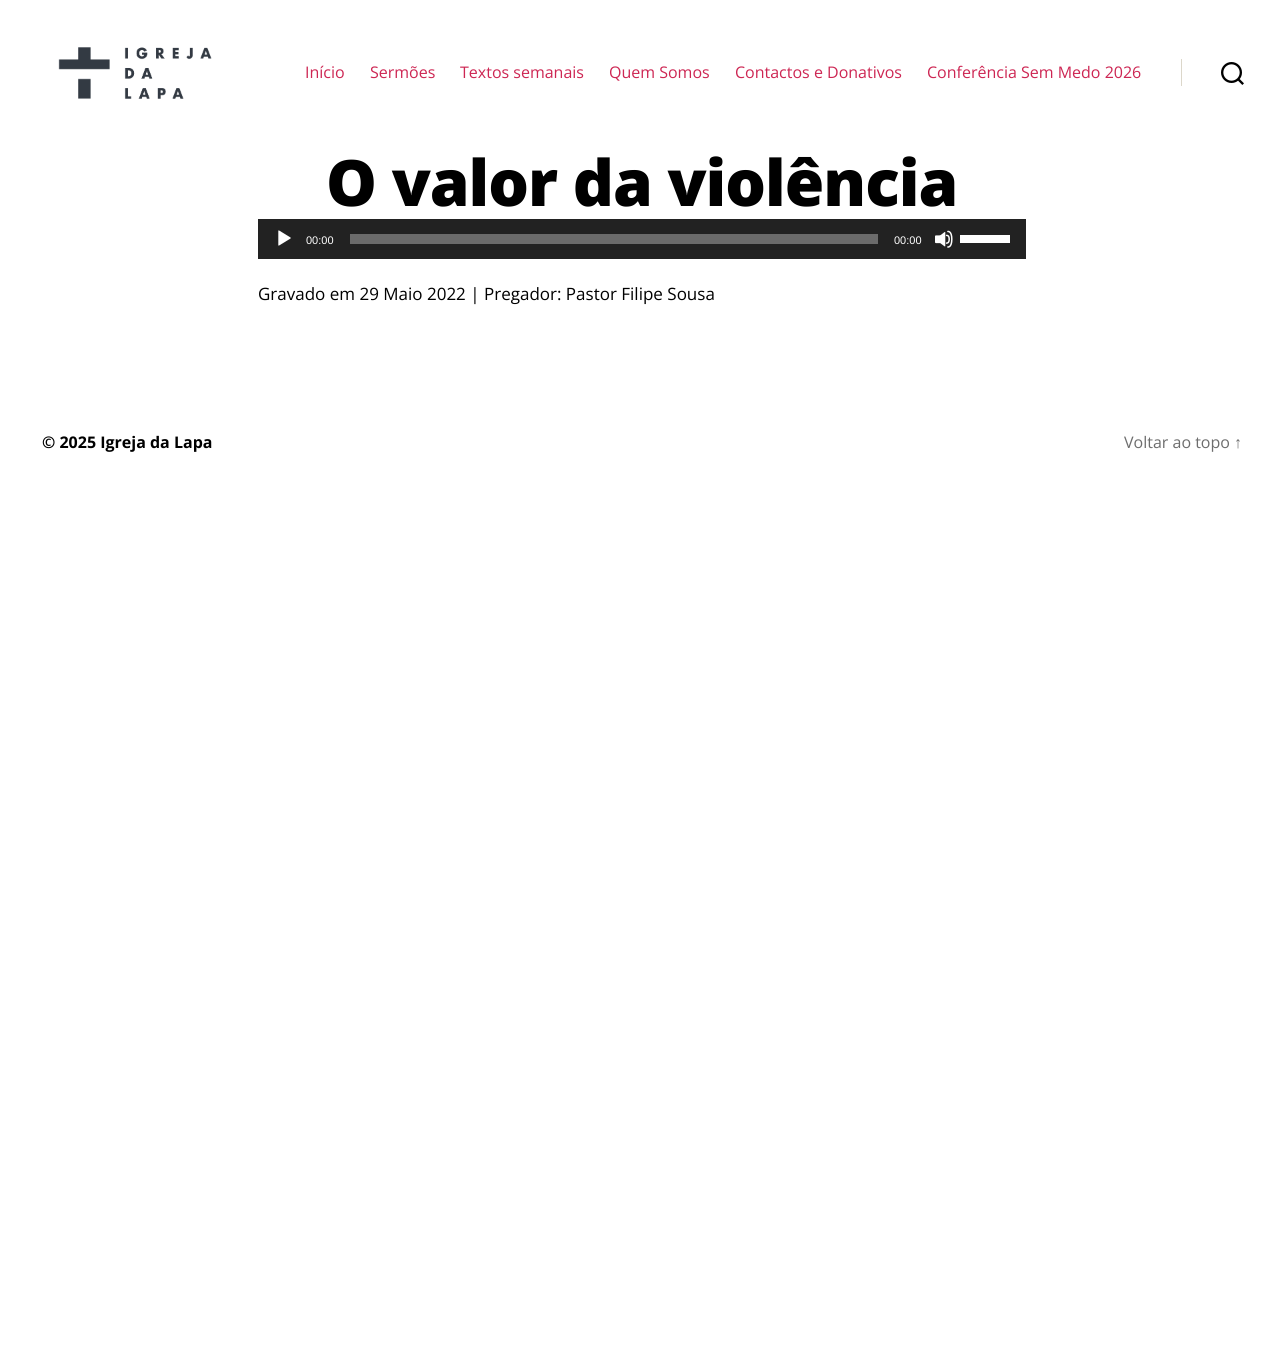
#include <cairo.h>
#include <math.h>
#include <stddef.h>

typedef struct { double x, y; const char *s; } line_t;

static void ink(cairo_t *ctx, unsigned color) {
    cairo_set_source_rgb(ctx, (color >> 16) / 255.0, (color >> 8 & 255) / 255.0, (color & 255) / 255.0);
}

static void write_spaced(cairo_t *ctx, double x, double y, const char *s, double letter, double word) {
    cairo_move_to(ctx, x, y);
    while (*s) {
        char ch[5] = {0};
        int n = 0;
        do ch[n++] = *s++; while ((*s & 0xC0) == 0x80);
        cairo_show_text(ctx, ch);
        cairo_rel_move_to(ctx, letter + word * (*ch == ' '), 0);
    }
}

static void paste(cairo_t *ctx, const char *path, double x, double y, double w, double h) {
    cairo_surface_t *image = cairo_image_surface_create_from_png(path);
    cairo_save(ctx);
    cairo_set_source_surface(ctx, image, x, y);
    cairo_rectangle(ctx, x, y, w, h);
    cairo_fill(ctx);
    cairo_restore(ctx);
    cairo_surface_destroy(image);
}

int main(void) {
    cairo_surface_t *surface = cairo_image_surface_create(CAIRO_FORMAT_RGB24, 1284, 1356);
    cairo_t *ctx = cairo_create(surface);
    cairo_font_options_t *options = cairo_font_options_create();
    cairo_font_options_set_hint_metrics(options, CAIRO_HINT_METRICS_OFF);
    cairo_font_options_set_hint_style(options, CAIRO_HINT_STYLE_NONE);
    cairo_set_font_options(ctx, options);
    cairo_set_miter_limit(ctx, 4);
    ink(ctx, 0xFFFFFF);
    cairo_paint(ctx);
    paste(ctx, "media/1.png", 58, 47, 154, 52);
    cairo_select_font_face(ctx, "Open Sans", CAIRO_FONT_SLANT_NORMAL, CAIRO_FONT_WEIGHT_NORMAL);
    cairo_set_font_size(ctx, 16);
    ink(ctx, 0xCD2653);
    {
        static const line_t items[] = {
            {305, 78, "Início"},
            {370, 78, "Sermões"},
            {460, 78, "Textos semanais"},
            {609, 78, "Quem Somos"},
            {735, 78, "Contactos e Donativos"},
            {927, 78, "Conferência Sem Medo 2026"},
        };
        for (size_t i = 0; i < sizeof items / sizeof *items; i++) {
            cairo_move_to(ctx, items[i].x, items[i].y);
            cairo_show_text(ctx, items[i].s);
        }
    }
    ink(ctx, 0xDCD7CA);
    cairo_rectangle(ctx, 1181, 59, 1, 27);
    cairo_fill(ctx);
    paste(ctx, "media/2.png", 1221, 62, 23, 23);
    cairo_select_font_face(ctx, "Open Sans ExtraBold", CAIRO_FONT_SLANT_NORMAL, CAIRO_FONT_WEIGHT_NORMAL);
    cairo_set_font_size(ctx, 64);
    ink(ctx, 0x000000);
    write_spaced(ctx, 326, 206, "O valor da violência", -1, 0);
    ink(ctx, 0x222222);
    cairo_rectangle(ctx, 258, 219, 768, 40);
    cairo_fill(ctx);
    paste(ctx, "media/3.png", 278, 230, 13, 16);
    cairo_select_font_face(ctx, "Liberation Sans", CAIRO_FONT_SLANT_NORMAL, CAIRO_FONT_WEIGHT_NORMAL);
    cairo_set_font_size(ctx, 11);
    ink(ctx, 0xFFFFFF);
    cairo_move_to(ctx, 306, 244);
    cairo_show_text(ctx, "00:00");
    ink(ctx, 0x6B6B6B);
    cairo_rectangle(ctx, 350, 234, 528, 10);
    cairo_fill(ctx);
    ink(ctx, 0xFFFFFF);
    cairo_move_to(ctx, 894, 244);
    cairo_show_text(ctx, "00:00");
    paste(ctx, "media/4.png", 935, 230, 18, 18);
    cairo_rectangle(ctx, 960, 235, 50, 8);
    cairo_fill(ctx);
    cairo_select_font_face(ctx, "Open Sans", CAIRO_FONT_SLANT_NORMAL, CAIRO_FONT_WEIGHT_NORMAL);
    cairo_set_font_size(ctx, 17);
    ink(ctx, 0x000000);
    cairo_move_to(ctx, 258, 300);
    cairo_show_text(ctx, "Gravado em 29 Maio 2022 | Pregador: Pastor Filipe Sousa");
    cairo_select_font_face(ctx, "Open Sans", CAIRO_FONT_SLANT_NORMAL, CAIRO_FONT_WEIGHT_BOLD);
    cairo_set_font_size(ctx, 16);
    cairo_move_to(ctx, 42, 448);
    cairo_show_text(ctx, "© 2025 Igreja da Lapa");
    cairo_select_font_face(ctx, "Open Sans", CAIRO_FONT_SLANT_NORMAL, CAIRO_FONT_WEIGHT_NORMAL);
    ink(ctx, 0x6D6D6D);
    cairo_move_to(ctx, 1124, 448);
    cairo_show_text(ctx, "Voltar ao topo");
    cairo_select_font_face(ctx, "Liberation Serif", CAIRO_FONT_SLANT_NORMAL, CAIRO_FONT_WEIGHT_NORMAL);
    cairo_move_to(ctx, 1234, 448);
    cairo_show_text(ctx, "↑");
    cairo_surface_write_to_png(surface, "image.png");
    cairo_font_options_destroy(options);
    cairo_destroy(ctx);
    cairo_surface_destroy(surface);
    return 0;
}
